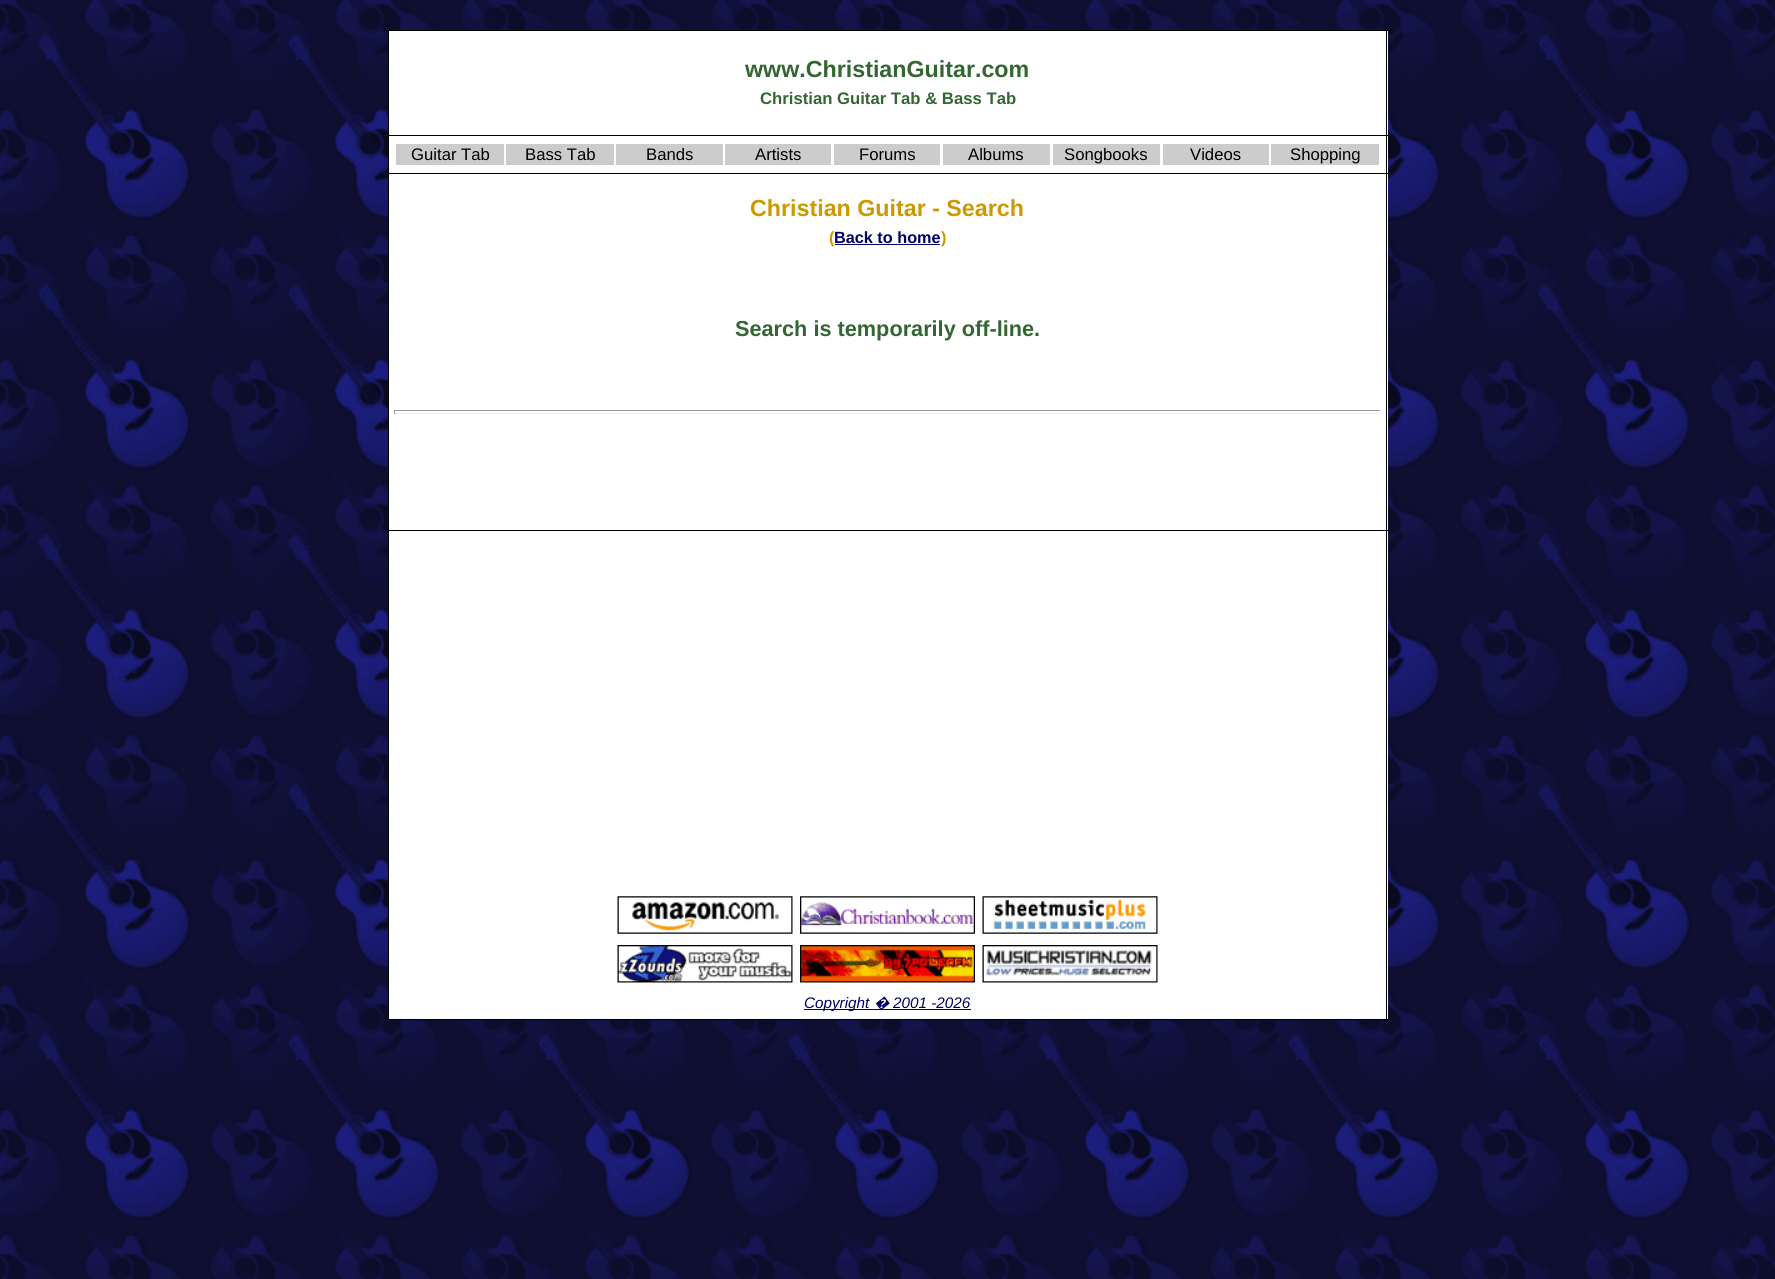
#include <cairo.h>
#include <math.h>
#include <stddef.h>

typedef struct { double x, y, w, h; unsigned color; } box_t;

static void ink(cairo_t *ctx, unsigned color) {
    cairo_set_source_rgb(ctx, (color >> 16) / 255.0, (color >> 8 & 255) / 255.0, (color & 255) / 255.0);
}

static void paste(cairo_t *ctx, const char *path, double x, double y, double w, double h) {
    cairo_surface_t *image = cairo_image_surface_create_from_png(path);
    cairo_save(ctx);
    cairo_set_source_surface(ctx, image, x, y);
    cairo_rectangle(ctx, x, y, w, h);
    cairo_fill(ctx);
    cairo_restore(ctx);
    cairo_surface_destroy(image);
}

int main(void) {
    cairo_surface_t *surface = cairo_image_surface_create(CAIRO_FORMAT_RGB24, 1775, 1279);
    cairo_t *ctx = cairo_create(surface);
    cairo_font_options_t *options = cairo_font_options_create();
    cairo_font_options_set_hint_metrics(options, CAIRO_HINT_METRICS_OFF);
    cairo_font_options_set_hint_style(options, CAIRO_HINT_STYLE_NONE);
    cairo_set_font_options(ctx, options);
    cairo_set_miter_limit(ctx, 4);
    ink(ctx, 0xFFFFFF);
    cairo_paint(ctx);
    paste(ctx, "media/1.png", 0, 0, 1775, 1279);
    {
        static const box_t items[] = {
            {389, 31, 999, 988, 0xFFFFFF},
            {388, 30, 1000, 1, 0x000000},
            {1386, 30, 1, 990, 0x000000},
            {388, 1019, 1000, 1, 0x000000},
            {388, 30, 1, 990, 0x000000},
        };
        for (size_t i = 0; i < sizeof items / sizeof *items; i++) {
            ink(ctx, items[i].color);
            cairo_rectangle(ctx, items[i].x, items[i].y, items[i].w, items[i].h);
            cairo_fill(ctx);
        }
    }
    cairo_select_font_face(ctx, "Liberation Sans", CAIRO_FONT_SLANT_NORMAL, CAIRO_FONT_WEIGHT_BOLD);
    cairo_set_font_size(ctx, 23.25);
    ink(ctx, 0x336633);
    cairo_move_to(ctx, 745, 77);
    cairo_show_text(ctx, "www.ChristianGuitar.com");
    cairo_set_font_size(ctx, 16.7);
    cairo_move_to(ctx, 760, 104);
    cairo_show_text(ctx, "Christian Guitar Tab & Bass Tab");
    ink(ctx, 0x000000);
    cairo_rectangle(ctx, 388, 135, 1000, 1);
    cairo_fill(ctx);
    ink(ctx, 0xCCCCCC);
    cairo_rectangle(ctx, 396, 144, 108, 21);
    cairo_fill(ctx);
    cairo_select_font_face(ctx, "Liberation Sans", CAIRO_FONT_SLANT_NORMAL, CAIRO_FONT_WEIGHT_NORMAL);
    ink(ctx, 0x000000);
    cairo_move_to(ctx, 411, 160);
    cairo_show_text(ctx, "Guitar Tab");
    ink(ctx, 0xCCCCCC);
    cairo_rectangle(ctx, 506, 144, 108, 21);
    cairo_fill(ctx);
    ink(ctx, 0x000000);
    cairo_move_to(ctx, 525, 160);
    cairo_show_text(ctx, "Bass Tab");
    ink(ctx, 0xCCCCCC);
    cairo_rectangle(ctx, 616, 144, 107, 21);
    cairo_fill(ctx);
    ink(ctx, 0x000000);
    cairo_move_to(ctx, 646, 160);
    cairo_show_text(ctx, "Bands");
    ink(ctx, 0xCCCCCC);
    cairo_rectangle(ctx, 725, 144, 106, 21);
    cairo_fill(ctx);
    ink(ctx, 0x000000);
    cairo_move_to(ctx, 755, 160);
    cairo_show_text(ctx, "Artists");
    ink(ctx, 0xCCCCCC);
    cairo_rectangle(ctx, 834, 144, 106, 21);
    cairo_fill(ctx);
    ink(ctx, 0x000000);
    cairo_move_to(ctx, 859, 160);
    cairo_show_text(ctx, "Forums");
    ink(ctx, 0xCCCCCC);
    cairo_rectangle(ctx, 943, 144, 107, 21);
    cairo_fill(ctx);
    ink(ctx, 0x000000);
    cairo_move_to(ctx, 968, 160);
    cairo_show_text(ctx, "Albums");
    ink(ctx, 0xCCCCCC);
    cairo_rectangle(ctx, 1053, 144, 107, 21);
    cairo_fill(ctx);
    ink(ctx, 0x000000);
    cairo_move_to(ctx, 1064, 160);
    cairo_show_text(ctx, "Songbooks");
    ink(ctx, 0xCCCCCC);
    cairo_rectangle(ctx, 1163, 144, 106, 21);
    cairo_fill(ctx);
    ink(ctx, 0x000000);
    cairo_move_to(ctx, 1190, 160);
    cairo_show_text(ctx, "Videos");
    ink(ctx, 0xCCCCCC);
    cairo_rectangle(ctx, 1271, 144, 108, 21);
    cairo_fill(ctx);
    ink(ctx, 0x000000);
    cairo_move_to(ctx, 1290, 160);
    cairo_show_text(ctx, "Shopping");
    cairo_rectangle(ctx, 388, 173, 1000, 1);
    cairo_fill(ctx);
    cairo_select_font_face(ctx, "Liberation Sans", CAIRO_FONT_SLANT_NORMAL, CAIRO_FONT_WEIGHT_BOLD);
    cairo_set_font_size(ctx, 23.25);
    ink(ctx, 0xCC9900);
    cairo_move_to(ctx, 750, 216);
    cairo_show_text(ctx, "Christian Guitar - Search");
    cairo_set_font_size(ctx, 16.25);
    cairo_move_to(ctx, 829, 243);
    cairo_show_text(ctx, "(");
    ink(ctx, 0x000066);
    cairo_rectangle(ctx, 835, 244, 105, 1);
    cairo_fill(ctx);
    cairo_move_to(ctx, 834, 243);
    cairo_show_text(ctx, "Back to home");
    ink(ctx, 0xCC9900);
    cairo_move_to(ctx, 941, 243);
    cairo_show_text(ctx, ")");
    cairo_set_font_size(ctx, 21.7);
    ink(ctx, 0x336633);
    cairo_move_to(ctx, 735, 336);
    cairo_show_text(ctx, "Search is temporarily off-line.");
    {
        static const box_t items[] = {
            {394, 410, 987, 1, 0x9F9F9F},
            {1380, 410, 1, 4, 0xEEEEEE},
            {394, 413, 987, 1, 0xEEEEEE},
            {394, 410, 1, 4, 0x9F9F9F},
            {388, 530, 1000, 1, 0x000000},
        };
        for (size_t i = 0; i < sizeof items / sizeof *items; i++) {
            ink(ctx, items[i].color);
            cairo_rectangle(ctx, items[i].x, items[i].y, items[i].w, items[i].h);
            cairo_fill(ctx);
        }
    }
    paste(ctx, "media/2.png", 617, 896, 176, 38);
    paste(ctx, "media/3.png", 800, 896, 175, 38);
    paste(ctx, "media/4.png", 982, 896, 176, 38);
    paste(ctx, "media/5.png", 617, 945, 176, 38);
    paste(ctx, "media/6.png", 800, 945, 175, 38);
    paste(ctx, "media/7.png", 982, 945, 176, 38);
    ink(ctx, 0x000066);
    cairo_rectangle(ctx, 804, 1009, 167, 1);
    cairo_fill(ctx);
    cairo_select_font_face(ctx, "Liberation Sans", CAIRO_FONT_SLANT_ITALIC, CAIRO_FONT_WEIGHT_NORMAL);
    cairo_set_font_size(ctx, 15.25);
    cairo_move_to(ctx, 804, 1008);
    cairo_show_text(ctx, "Copyright");
    cairo_select_font_face(ctx, "Noto Sans", CAIRO_FONT_SLANT_ITALIC, CAIRO_FONT_WEIGHT_NORMAL);
    cairo_move_to(ctx, 874, 1008);
    cairo_show_text(ctx, "�");
    cairo_select_font_face(ctx, "Liberation Sans", CAIRO_FONT_SLANT_ITALIC, CAIRO_FONT_WEIGHT_NORMAL);
    cairo_move_to(ctx, 893, 1008);
    cairo_show_text(ctx, "2001 -2026");
    cairo_surface_write_to_png(surface, "image.png");
    cairo_font_options_destroy(options);
    cairo_destroy(ctx);
    cairo_surface_destroy(surface);
    return 0;
}
